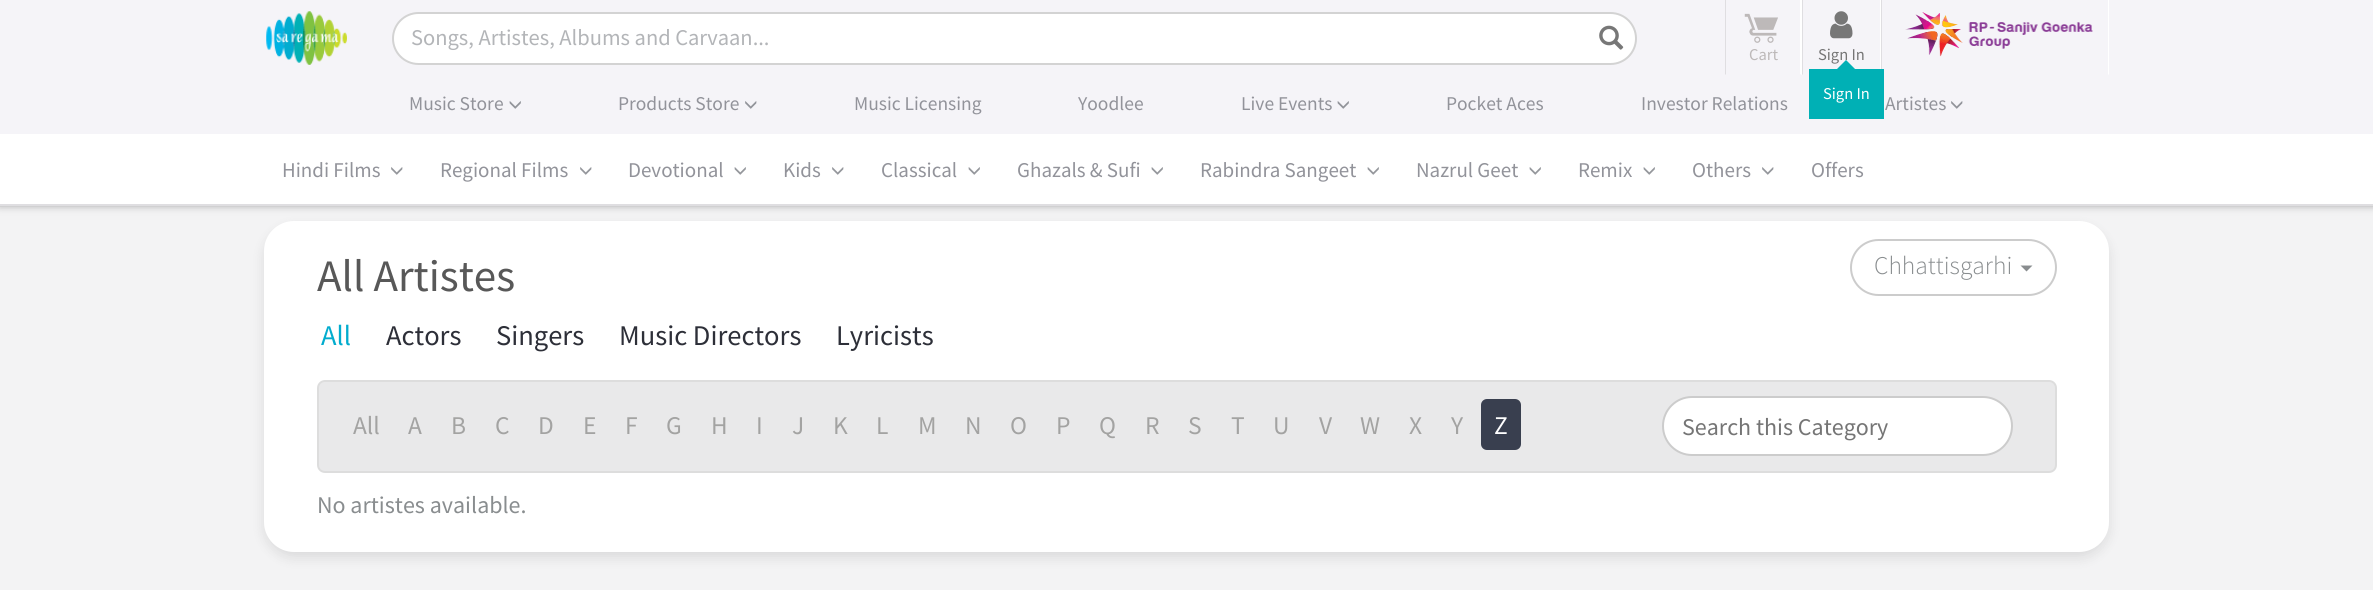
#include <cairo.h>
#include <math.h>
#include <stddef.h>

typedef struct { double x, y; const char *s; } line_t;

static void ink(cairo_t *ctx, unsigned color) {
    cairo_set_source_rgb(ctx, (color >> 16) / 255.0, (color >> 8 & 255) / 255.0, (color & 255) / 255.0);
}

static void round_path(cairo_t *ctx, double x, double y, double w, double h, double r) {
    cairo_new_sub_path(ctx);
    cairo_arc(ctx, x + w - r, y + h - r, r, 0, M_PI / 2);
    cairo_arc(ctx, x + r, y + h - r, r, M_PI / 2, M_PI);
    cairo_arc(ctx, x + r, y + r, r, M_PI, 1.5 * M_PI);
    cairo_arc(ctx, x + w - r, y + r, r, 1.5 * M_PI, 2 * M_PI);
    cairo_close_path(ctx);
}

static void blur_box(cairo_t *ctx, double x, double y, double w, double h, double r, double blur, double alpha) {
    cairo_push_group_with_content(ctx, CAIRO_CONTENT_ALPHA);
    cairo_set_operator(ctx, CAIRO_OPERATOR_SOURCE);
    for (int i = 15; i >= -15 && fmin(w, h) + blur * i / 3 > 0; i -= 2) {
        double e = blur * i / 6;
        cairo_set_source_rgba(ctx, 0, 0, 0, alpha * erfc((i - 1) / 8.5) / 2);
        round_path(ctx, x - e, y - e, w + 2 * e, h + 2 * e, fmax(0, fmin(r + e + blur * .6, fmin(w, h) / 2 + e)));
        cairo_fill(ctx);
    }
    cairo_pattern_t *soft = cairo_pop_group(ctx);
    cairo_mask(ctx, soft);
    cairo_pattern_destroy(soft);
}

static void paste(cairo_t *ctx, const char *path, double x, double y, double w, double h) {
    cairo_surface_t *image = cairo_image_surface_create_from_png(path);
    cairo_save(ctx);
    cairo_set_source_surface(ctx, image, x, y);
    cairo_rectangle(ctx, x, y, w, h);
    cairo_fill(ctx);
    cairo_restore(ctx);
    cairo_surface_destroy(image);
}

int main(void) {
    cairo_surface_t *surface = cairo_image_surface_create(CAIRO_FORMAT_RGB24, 2373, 590);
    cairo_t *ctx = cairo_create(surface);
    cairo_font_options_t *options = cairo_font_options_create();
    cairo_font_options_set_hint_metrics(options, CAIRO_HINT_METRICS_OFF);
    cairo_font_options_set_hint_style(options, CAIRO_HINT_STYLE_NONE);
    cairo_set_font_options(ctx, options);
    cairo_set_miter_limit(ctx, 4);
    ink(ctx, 0xF3F3F4);
    cairo_paint(ctx);
    ink(ctx, 0x666666);
    blur_box(ctx, -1, -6, 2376, 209, 0, 5, 1);
    ink(ctx, 0xF5F4F8);
    cairo_rectangle(ctx, 0, 0, 2373, 134);
    cairo_fill(ctx);
    paste(ctx, "media/1.png", 266, 11, 81, 54);
    ink(ctx, 0xFFFFFF);
    round_path(ctx, 393, 13, 1243, 51, 25.5);
    cairo_fill_preserve(ctx);
    ink(ctx, 0xD3D3D3);
    cairo_stroke(ctx);
    cairo_select_font_face(ctx, "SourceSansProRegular", CAIRO_FONT_SLANT_NORMAL, CAIRO_FONT_WEIGHT_NORMAL);
    cairo_set_font_size(ctx, 22.5);
    ink(ctx, 0xB3B5B8);
    cairo_move_to(ctx, 411, 45);
    cairo_show_text(ctx, "Songs, Artistes, Albums and Carvaan...");
    paste(ctx, "media/2.png", 1599, 25, 25, 25);
    ink(ctx, 0xFFFFFF);
    cairo_new_path(ctx);
    cairo_move_to(ctx, 1802, 0);
    cairo_line_to(ctx, 1802, 75);
    cairo_line_to(ctx, 1800, 74);
    cairo_line_to(ctx, 1800, 0);
    cairo_close_path(ctx);
    cairo_fill(ctx);
    ink(ctx, 0xDFDEE1);
    cairo_new_path(ctx);
    cairo_move_to(ctx, 1725, 75);
    cairo_line_to(ctx, 1725, 0);
    cairo_line_to(ctx, 1726, 0);
    cairo_line_to(ctx, 1726, 74);
    cairo_close_path(ctx);
    cairo_fill(ctx);
    paste(ctx, "media/3.png", 1744, 13, 34, 30);
    cairo_set_font_size(ctx, 16.5);
    ink(ctx, 0xBDB9B9);
    cairo_move_to(ctx, 1749, 60);
    cairo_show_text(ctx, "Cart");
    ink(ctx, 0xFFFFFF);
    cairo_new_path(ctx);
    cairo_move_to(ctx, 1881, 0);
    cairo_line_to(ctx, 1881, 75);
    cairo_line_to(ctx, 1880, 74);
    cairo_line_to(ctx, 1880, 0);
    cairo_close_path(ctx);
    cairo_fill(ctx);
    ink(ctx, 0xDFDEE1);
    cairo_new_path(ctx);
    cairo_move_to(ctx, 1802, 75);
    cairo_line_to(ctx, 1802, 0);
    cairo_line_to(ctx, 1803, 0);
    cairo_line_to(ctx, 1803, 74);
    cairo_close_path(ctx);
    cairo_fill(ctx);
    paste(ctx, "media/4.png", 1830, 11, 23, 28);
    ink(ctx, 0x757575);
    cairo_move_to(ctx, 1818, 60);
    cairo_show_text(ctx, "Sign In");
    ink(ctx, 0xDFDEE1);
    cairo_new_path(ctx);
    cairo_move_to(ctx, 1881, 75);
    cairo_line_to(ctx, 1881, 0);
    cairo_line_to(ctx, 1882, 0);
    cairo_line_to(ctx, 1882, 74);
    cairo_close_path(ctx);
    cairo_fill(ctx);
    ink(ctx, 0x00B0B5);
    cairo_rectangle(ctx, 1809, 69, 75, 50);
    cairo_fill(ctx);
    cairo_new_path(ctx);
    cairo_move_to(ctx, 1846, 60);
    cairo_line_to(ctx, 1856.5, 70.5);
    cairo_line_to(ctx, 1846, 81);
    cairo_line_to(ctx, 1835.5, 70.5);
    cairo_close_path(ctx);
    cairo_fill(ctx);
    ink(ctx, 0xFFFFFF);
    cairo_move_to(ctx, 1823, 99);
    cairo_show_text(ctx, "Sign In");
    cairo_new_path(ctx);
    cairo_move_to(ctx, 2109, 0);
    cairo_line_to(ctx, 2109, 75);
    cairo_line_to(ctx, 2108, 74);
    cairo_line_to(ctx, 2108, 0);
    cairo_close_path(ctx);
    cairo_fill(ctx);
    paste(ctx, "media/5.png", 1905, 12, 188, 45);
    cairo_set_font_size(ctx, 19.5);
    ink(ctx, 0x92939A);
    cairo_move_to(ctx, 409, 110);
    cairo_show_text(ctx, "Music Store");
    paste(ctx, "media/6.png", 509, 101, 12, 8);
    cairo_move_to(ctx, 618, 110);
    cairo_show_text(ctx, "Products Store");
    paste(ctx, "media/7.png", 745, 101, 12, 8);
    {
        static const line_t items[] = {
            {854, 110, "Music Licensing"},
            {1078, 110, "Yoodlee"},
            {1241, 110, "Live Events"},
        };
        for (size_t i = 0; i < sizeof items / sizeof *items; i++) {
            cairo_move_to(ctx, items[i].x, items[i].y);
            cairo_show_text(ctx, items[i].s);
        }
    }
    paste(ctx, "media/6.png", 1337, 101, 12, 8);
    {
        static const line_t items[] = {
            {1446, 110, "Pocket Aces"},
            {1641, 110, "Investor Relations"},
            {1885, 110, "Artistes"},
        };
        for (size_t i = 0; i < sizeof items / sizeof *items; i++) {
            cairo_move_to(ctx, items[i].x, items[i].y);
            cairo_show_text(ctx, items[i].s);
        }
    }
    paste(ctx, "media/7.png", 1951, 101, 12, 8);
    ink(ctx, 0xFFFFFF);
    cairo_rectangle(ctx, 0, 134, 2373, 70);
    cairo_fill(ctx);
    ink(ctx, 0xDFDEE1);
    cairo_rectangle(ctx, 0, 204, 2373, 2);
    cairo_fill(ctx);
    cairo_set_font_size(ctx, 21);
    ink(ctx, 0x92939A);
    cairo_move_to(ctx, 282, 177);
    cairo_show_text(ctx, "Hindi Films");
    paste(ctx, "media/8.png", 391, 167, 12, 8);
    cairo_move_to(ctx, 440, 177);
    cairo_show_text(ctx, "Regional Films");
    paste(ctx, "media/8.png", 580, 167, 12, 8);
    cairo_move_to(ctx, 628, 177);
    cairo_show_text(ctx, "Devotional");
    paste(ctx, "media/9.png", 734, 167, 12, 8);
    cairo_move_to(ctx, 783, 177);
    cairo_show_text(ctx, "Kids");
    paste(ctx, "media/8.png", 832, 167, 12, 8);
    cairo_move_to(ctx, 881, 177);
    cairo_show_text(ctx, "Classical");
    paste(ctx, "media/9.png", 968, 167, 12, 8);
    cairo_move_to(ctx, 1017, 177);
    cairo_show_text(ctx, "Ghazals & Sufi");
    paste(ctx, "media/9.png", 1151, 167, 12, 8);
    cairo_move_to(ctx, 1200, 177);
    cairo_show_text(ctx, "Rabindra Sangeet");
    paste(ctx, "media/9.png", 1367, 167, 12, 8);
    cairo_move_to(ctx, 1416, 177);
    cairo_show_text(ctx, "Nazrul Geet");
    paste(ctx, "media/9.png", 1529, 167, 12, 8);
    cairo_move_to(ctx, 1578, 177);
    cairo_show_text(ctx, "Remix");
    paste(ctx, "media/9.png", 1643, 167, 12, 8);
    cairo_move_to(ctx, 1692, 177);
    cairo_show_text(ctx, "Others");
    paste(ctx, "media/8.png", 1762, 167, 12, 8);
    cairo_move_to(ctx, 1811, 177);
    cairo_show_text(ctx, "Offers");
    ink(ctx, 0x000000);
    blur_box(ctx, 264, 227, 1845, 331, 30, 6, 0.1);
    ink(ctx, 0xFFFFFF);
    round_path(ctx, 264, 221, 1845, 331, 30);
    cairo_fill(ctx);
    cairo_set_font_size(ctx, 45);
    ink(ctx, 0x585858);
    cairo_move_to(ctx, 317, 291);
    cairo_show_text(ctx, "All Artistes");
    round_path(ctx, 1851, 240, 205, 55, 27.5);
    ink(ctx, 0xCCCCCC);
    cairo_stroke(ctx);
    cairo_select_font_face(ctx, "Source Sans Pro Light", CAIRO_FONT_SLANT_NORMAL, CAIRO_FONT_WEIGHT_NORMAL);
    cairo_set_font_size(ctx, 25.5);
    ink(ctx, 0x898D8F);
    cairo_move_to(ctx, 1874, 274);
    cairo_show_text(ctx, "Chhattisgarhi");
    cairo_new_path(ctx);
    cairo_move_to(ctx, 2020.5, 265.5);
    cairo_line_to(ctx, 2032.5, 265.5);
    cairo_line_to(ctx, 2026.5, 271.5);
    cairo_close_path(ctx);
    cairo_fill(ctx);
    cairo_select_font_face(ctx, "SourceSansProRegular", CAIRO_FONT_SLANT_NORMAL, CAIRO_FONT_WEIGHT_NORMAL);
    cairo_set_font_size(ctx, 28.5);
    ink(ctx, 0x02ACCE);
    cairo_move_to(ctx, 321, 345);
    cairo_show_text(ctx, "All");
    ink(ctx, 0x2D2F38);
    {
        static const line_t items[] = {
            {386, 345, "Actors"},
            {496, 345, "Singers"},
            {619, 345, "Music Directors"},
            {836, 345, "Lyricists"},
        };
        for (size_t i = 0; i < sizeof items / sizeof *items; i++) {
            cairo_move_to(ctx, items[i].x, items[i].y);
            cairo_show_text(ctx, items[i].s);
        }
    }
    ink(ctx, 0xE9E9EA);
    round_path(ctx, 318, 381, 1738, 91, 7);
    cairo_fill_preserve(ctx);
    ink(ctx, 0xDDDDDD);
    cairo_stroke(ctx);
    cairo_set_font_size(ctx, 25.5);
    ink(ctx, 0xA3A3A2);
    {
        static const line_t items[] = {
            {353, 434, "All"},
            {408, 434, "A"},
            {451, 434, "B"},
            {495, 434, "C"},
            {538, 434, "D"},
            {583, 434, "E"},
            {625, 434, "F"},
            {666, 434, "G"},
            {711, 434, "H"},
            {756, 434, "I"},
            {792, 434, "J"},
            {833, 434, "K"},
            {876, 434, "L"},
            {918, 434, "M"},
            {965, 434, "N"},
            {1010, 434, "O"},
            {1056, 434, "P"},
            {1099, 434, "Q"},
            {1145, 434, "R"},
            {1188, 434, "S"},
            {1231, 434, "T"},
            {1273, 434, "U"},
            {1319, 434, "V"},
            {1360, 434, "W"},
            {1409, 434, "X"},
            {1451, 434, "Y"},
        };
        for (size_t i = 0; i < sizeof items / sizeof *items; i++) {
            cairo_move_to(ctx, items[i].x, items[i].y);
            cairo_show_text(ctx, items[i].s);
        }
    }
    ink(ctx, 0x393F4F);
    round_path(ctx, 1482, 400, 38, 49, 5);
    cairo_fill_preserve(ctx);
    cairo_stroke(ctx);
    ink(ctx, 0xFFFFFF);
    cairo_move_to(ctx, 1494, 434);
    cairo_show_text(ctx, "Z");
    round_path(ctx, 1663, 397, 349, 58, 29);
    cairo_fill_preserve(ctx);
    ink(ctx, 0xCCCCCC);
    cairo_stroke(ctx);
    cairo_set_font_size(ctx, 24);
    ink(ctx, 0x757575);
    cairo_move_to(ctx, 1682, 435);
    cairo_show_text(ctx, "Search this Category");
    ink(ctx, 0x898D8F);
    cairo_move_to(ctx, 317, 513);
    cairo_show_text(ctx, "No artistes available.");
    cairo_surface_write_to_png(surface, "image.png");
    cairo_font_options_destroy(options);
    cairo_destroy(ctx);
    cairo_surface_destroy(surface);
    return 0;
}
